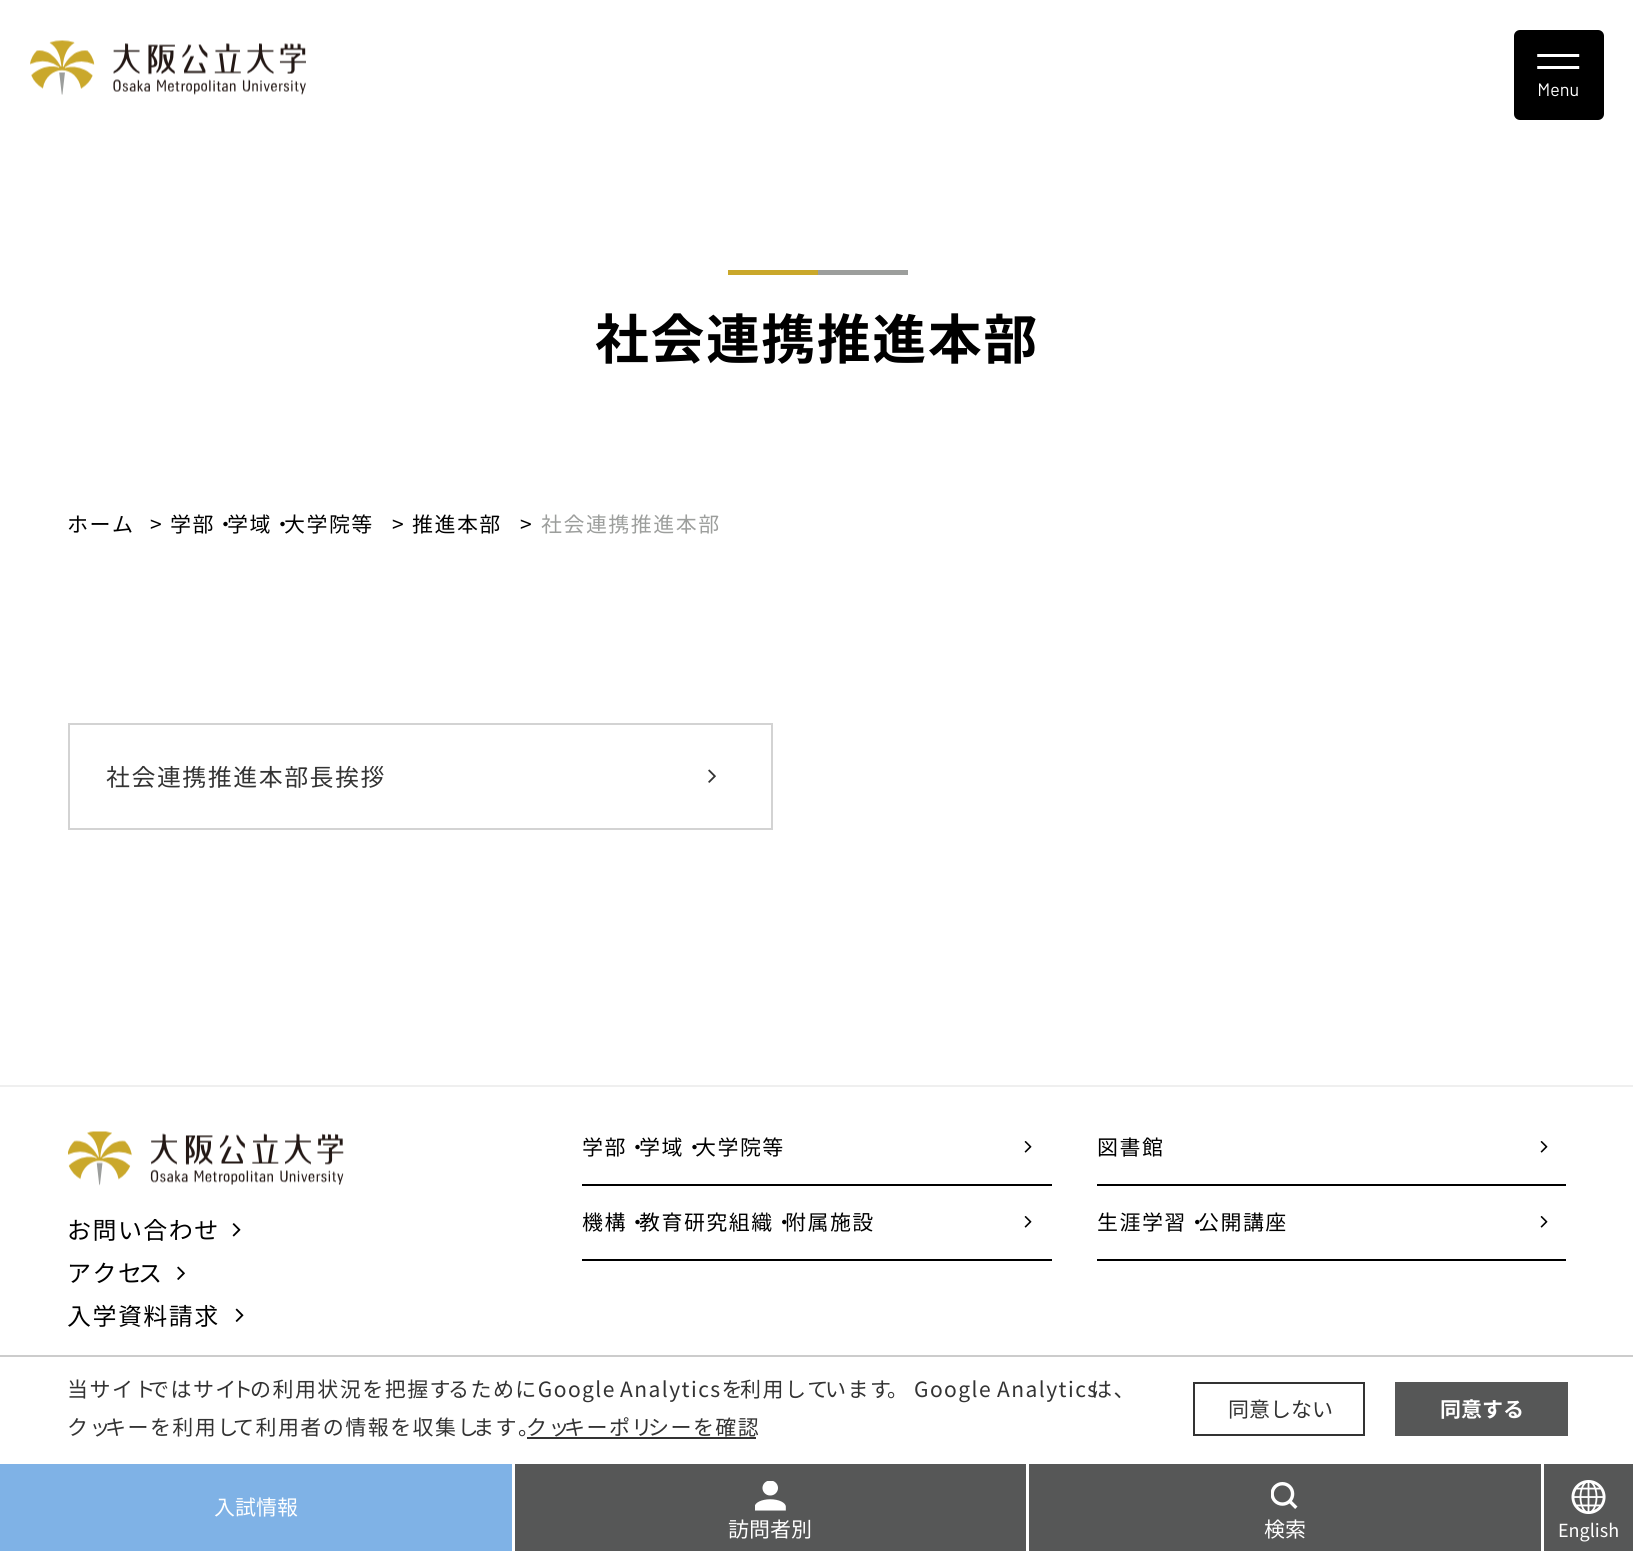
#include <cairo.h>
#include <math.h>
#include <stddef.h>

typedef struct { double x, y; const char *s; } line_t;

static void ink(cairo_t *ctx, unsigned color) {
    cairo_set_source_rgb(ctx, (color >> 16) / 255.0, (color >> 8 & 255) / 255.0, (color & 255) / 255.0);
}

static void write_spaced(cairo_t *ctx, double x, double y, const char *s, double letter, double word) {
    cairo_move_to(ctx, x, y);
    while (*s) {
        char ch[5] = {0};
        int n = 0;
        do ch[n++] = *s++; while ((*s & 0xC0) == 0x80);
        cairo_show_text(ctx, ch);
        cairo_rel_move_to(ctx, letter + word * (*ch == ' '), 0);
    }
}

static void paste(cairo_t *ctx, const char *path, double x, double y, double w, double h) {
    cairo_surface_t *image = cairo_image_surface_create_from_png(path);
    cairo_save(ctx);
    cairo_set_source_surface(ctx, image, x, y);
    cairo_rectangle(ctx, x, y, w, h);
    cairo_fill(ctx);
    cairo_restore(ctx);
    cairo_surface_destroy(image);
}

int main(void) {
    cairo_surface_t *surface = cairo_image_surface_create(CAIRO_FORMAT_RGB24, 1633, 1551);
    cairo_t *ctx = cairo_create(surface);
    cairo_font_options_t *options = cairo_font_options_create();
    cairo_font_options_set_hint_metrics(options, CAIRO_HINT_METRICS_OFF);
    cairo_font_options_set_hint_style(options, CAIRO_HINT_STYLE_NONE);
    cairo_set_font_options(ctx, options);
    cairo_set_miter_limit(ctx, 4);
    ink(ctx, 0xFFFFFF);
    cairo_paint(ctx);
    ink(ctx, 0xCAA82B);
    cairo_rectangle(ctx, 728, 270, 90, 5);
    cairo_fill(ctx);
    ink(ctx, 0x9C9E9C);
    cairo_rectangle(ctx, 818, 270, 90, 5);
    cairo_fill(ctx);
    cairo_select_font_face(ctx, "Noto Sans JP", CAIRO_FONT_SLANT_NORMAL, CAIRO_FONT_WEIGHT_BOLD);
    cairo_set_font_size(ctx, 54);
    ink(ctx, 0x000000);
    write_spaced(ctx, 595, 359, "社会連携推進本部", 1.45, 0);
    cairo_select_font_face(ctx, "Noto Sans JP", CAIRO_FONT_SLANT_NORMAL, CAIRO_FONT_WEIGHT_NORMAL);
    cairo_set_font_size(ctx, 21);
    {
        static const line_t items[] = {
            {67, 532, "ホーム"},
            {150, 532, ">"},
            {170, 532, "学部・"},
            {227, 532, "学域・"},
            {284, 532, "大学院等"},
            {392, 532, ">"},
            {412, 532, "推進本部"},
            {520, 532, ">"},
        };
        for (size_t i = 0; i < sizeof items / sizeof *items; i++) {
            write_spaced(ctx, items[i].x, items[i].y, items[i].s, 1.45, 0);
        }
    }
    ink(ctx, 0x9C9E9C);
    write_spaced(ctx, 541, 532, "社会連携推進本部", 1.45, 0);
    cairo_rectangle(ctx, 69, 724, 703, 105);
    ink(ctx, 0xD3D3D3);
    cairo_stroke(ctx);
    cairo_set_font_size(ctx, 24);
    ink(ctx, 0x333333);
    write_spaced(ctx, 106, 786, "社会連携推進本部長挨拶", 1.45, 0);
    paste(ctx, "media/1.png", 708, 769, 8, 14);
    ink(ctx, 0xEFEFEF);
    cairo_rectangle(ctx, 0, 1085, 1633, 2);
    cairo_fill(ctx);
    ink(ctx, 0x000000);
    cairo_rectangle(ctx, 582, 1184, 470, 2);
    cairo_fill(ctx);
    cairo_set_font_size(ctx, 21);
    write_spaced(ctx, 582, 1155, "学部・", 1.45, 0);
    write_spaced(ctx, 639, 1155, "学域・", 1.45, 0);
    write_spaced(ctx, 695, 1155, "大学院等", 1.45, 0);
    paste(ctx, "media/2.png", 1024, 1141, 8, 12);
    cairo_rectangle(ctx, 582, 1259, 470, 2);
    cairo_fill(ctx);
    write_spaced(ctx, 582, 1230, "機構・", 1.45, 0);
    write_spaced(ctx, 639, 1230, "教育研究組織・", 1.45, 0);
    write_spaced(ctx, 785, 1230, "附属施設", 1.45, 0);
    paste(ctx, "media/2.png", 1024, 1216, 8, 12);
    cairo_rectangle(ctx, 1097, 1184, 469, 2);
    cairo_fill(ctx);
    write_spaced(ctx, 1097, 1155, "図書館", 1.45, 0);
    paste(ctx, "media/2.png", 1540, 1141, 8, 12);
    cairo_rectangle(ctx, 1097, 1259, 469, 2);
    cairo_fill(ctx);
    write_spaced(ctx, 1097, 1230, "生涯学習・", 1.45, 0);
    write_spaced(ctx, 1198, 1230, "公開講座", 1.45, 0);
    paste(ctx, "media/2.png", 1540, 1216, 8, 12);
    paste(ctx, "media/3.png", 68, 1131, 276, 55);
    cairo_set_font_size(ctx, 24);
    write_spaced(ctx, 67, 1239, "お問い合わせ", 1.45, 0);
    paste(ctx, "media/4.png", 232, 1223, 9, 14);
    write_spaced(ctx, 67, 1282, "アクセ", 1.45, 0);
    write_spaced(ctx, 138, 1282, "ス", 1.45, 0);
    paste(ctx, "media/5.png", 177, 1266, 8, 14);
    write_spaced(ctx, 67, 1325, "入学資料請求", 1.45, 0);
    paste(ctx, "media/6.png", 235, 1308, 9, 14);
    ink(ctx, 0xCCCCCC);
    cairo_rectangle(ctx, 0, 1355, 1633, 2);
    cairo_fill(ctx);
    cairo_set_font_size(ctx, 21);
    ink(ctx, 0x333333);
    write_spaced(ctx, 67, 1397, "当サイト", 1.45, 0);
    write_spaced(ctx, 148, 1397, "ではサイ", 1.45, 0);
    write_spaced(ctx, 232, 1397, "ト", 1.45, 0);
    write_spaced(ctx, 250, 1397, "の利用状況を把握す", 1.45, 0);
    write_spaced(ctx, 448, 1397, "るためにGoogle", 1.45, 0);
    write_spaced(ctx, 620, 1397, "Analyticsを", 1.45, 0);
    write_spaced(ctx, 740, 1397, "利用して", 1.45, 0);
    write_spaced(ctx, 825, 1397, "います", 1.45, 0);
    write_spaced(ctx, 887, 1397, "。", 1.45, 0);
    write_spaced(ctx, 914, 1397, "Google", 1.45, 0);
    write_spaced(ctx, 997, 1397, "Analytics", 1.45, 0);
    write_spaced(ctx, 1091, 1397, "は、", 1.45, 0);
    write_spaced(ctx, 67, 1435, "クッ", 1.45, 0);
    write_spaced(ctx, 105, 1435, "キーを利用し", 1.45, 0);
    write_spaced(ctx, 233, 1435, "て利用者の情報を収集し", 1.45, 0);
    write_spaced(ctx, 473, 1435, "ます。", 1.45, 0);
    write_spaced(ctx, 526, 1435, "クッ", 1.45, 0);
    write_spaced(ctx, 564, 1435, "キーポリ", 1.45, 0);
    write_spaced(ctx, 648, 1435, "シーを確認", 1.45, 0);
    cairo_rectangle(ctx, 527, 1437, 229, 2);
    cairo_fill(ctx);
    cairo_rectangle(ctx, 1194, 1383, 170, 52);
    cairo_stroke(ctx);
    cairo_move_to(ctx, 1228, 1417);
    cairo_show_text(ctx, "同意しない");
    ink(ctx, 0x565757);
    cairo_rectangle(ctx, 1395, 1382, 173, 54);
    cairo_fill(ctx);
    cairo_select_font_face(ctx, "Noto Sans JP", CAIRO_FONT_SLANT_NORMAL, CAIRO_FONT_WEIGHT_BOLD);
    ink(ctx, 0xFFFFFF);
    cairo_move_to(ctx, 1440, 1417);
    cairo_show_text(ctx, "同意する");
    paste(ctx, "media/7.png", 30, 40, 276, 55);
    paste(ctx, "media/8.png", 1514, 30, 90, 90);
    ink(ctx, 0x565757);
    cairo_rectangle(ctx, 515, 1464, 1118, 87);
    cairo_fill(ctx);
    ink(ctx, 0x7FB2E6);
    cairo_rectangle(ctx, 0, 1464, 512, 87);
    cairo_fill(ctx);
    cairo_select_font_face(ctx, "Noto Sans JP", CAIRO_FONT_SLANT_NORMAL, CAIRO_FONT_WEIGHT_NORMAL);
    ink(ctx, 0xFFFFFF);
    cairo_move_to(ctx, 214, 1515);
    cairo_show_text(ctx, "入試情報");
    cairo_rectangle(ctx, 1026, 1461, 3, 90);
    cairo_fill(ctx);
    paste(ctx, "media/9.png", 755, 1481, 31, 30);
    cairo_move_to(ctx, 728, 1537);
    cairo_show_text(ctx, "訪問者別");
    cairo_rectangle(ctx, 1541, 1461, 3, 90);
    cairo_fill(ctx);
    paste(ctx, "media/10.png", 1271, 1482, 27, 27);
    cairo_move_to(ctx, 1264, 1537);
    cairo_show_text(ctx, "検索");
    paste(ctx, "media/11.png", 1571, 1480, 35, 34);
    cairo_set_font_size(ctx, 18);
    cairo_move_to(ctx, 1558, 1537);
    cairo_show_text(ctx, "English");
    cairo_surface_write_to_png(surface, "image.png");
    cairo_font_options_destroy(options);
    cairo_destroy(ctx);
    cairo_surface_destroy(surface);
    return 0;
}
